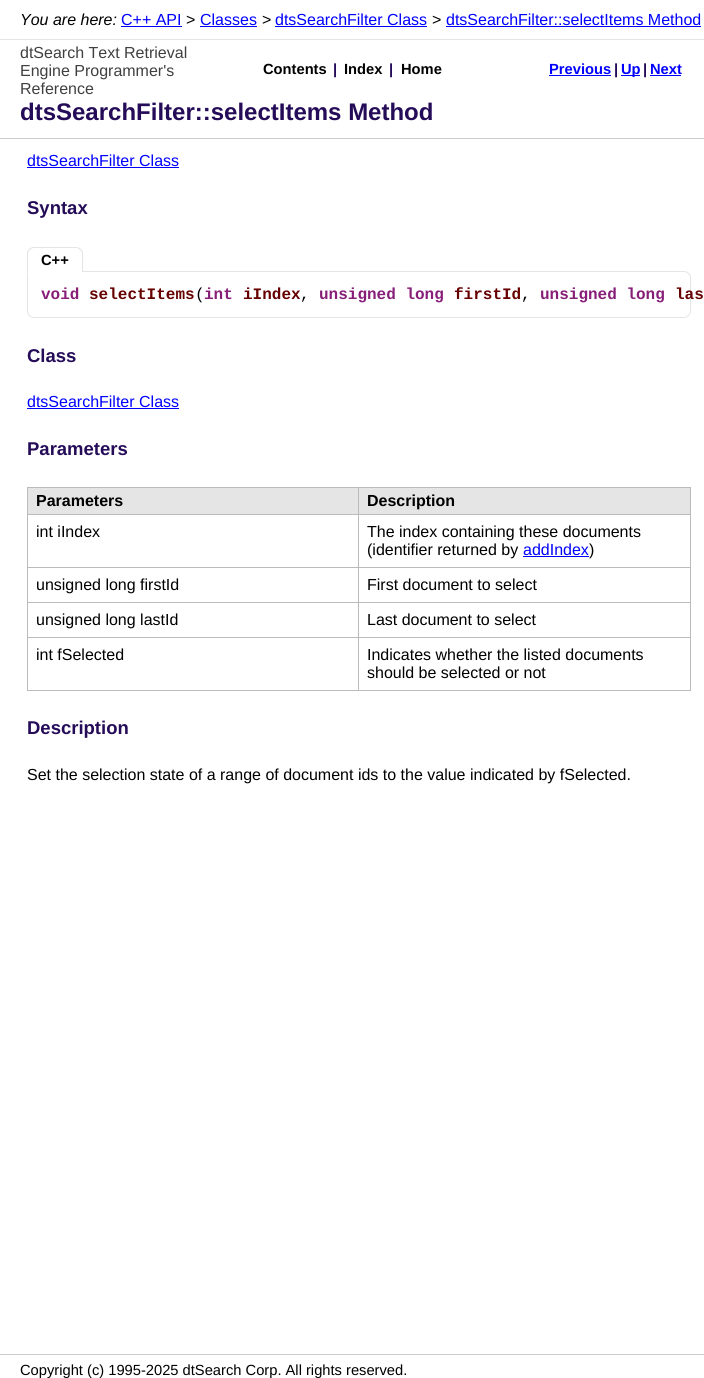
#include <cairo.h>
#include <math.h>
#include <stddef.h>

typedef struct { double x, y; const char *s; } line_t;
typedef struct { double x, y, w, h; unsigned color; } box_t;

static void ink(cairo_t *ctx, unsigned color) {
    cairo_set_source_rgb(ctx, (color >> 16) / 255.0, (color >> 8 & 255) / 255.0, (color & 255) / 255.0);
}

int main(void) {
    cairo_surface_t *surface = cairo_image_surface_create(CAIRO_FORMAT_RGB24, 704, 1378);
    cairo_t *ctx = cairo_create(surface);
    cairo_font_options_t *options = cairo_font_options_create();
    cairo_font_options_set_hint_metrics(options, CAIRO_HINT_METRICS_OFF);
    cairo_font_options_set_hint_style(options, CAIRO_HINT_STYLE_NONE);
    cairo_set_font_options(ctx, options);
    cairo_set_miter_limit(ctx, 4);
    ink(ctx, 0xFFFFFF);
    cairo_paint(ctx);
    ink(ctx, 0xE5E5E5);
    cairo_rectangle(ctx, 0, 39, 704, 1);
    cairo_fill(ctx);
    cairo_select_font_face(ctx, "Liberation Sans", CAIRO_FONT_SLANT_ITALIC, CAIRO_FONT_WEIGHT_NORMAL);
    cairo_set_font_size(ctx, 16);
    ink(ctx, 0x000000);
    cairo_move_to(ctx, 20, 25);
    cairo_show_text(ctx, "You are here:");
    cairo_select_font_face(ctx, "Liberation Sans", CAIRO_FONT_SLANT_NORMAL, CAIRO_FONT_WEIGHT_NORMAL);
    ink(ctx, 0x0000FF);
    cairo_move_to(ctx, 121, 25);
    cairo_show_text(ctx, "C++ API");
    cairo_rectangle(ctx, 121, 26, 61, 1);
    cairo_fill(ctx);
    ink(ctx, 0x000000);
    cairo_move_to(ctx, 186, 25);
    cairo_show_text(ctx, ">");
    ink(ctx, 0x0000FF);
    cairo_move_to(ctx, 200, 25);
    cairo_show_text(ctx, "Classes");
    cairo_rectangle(ctx, 200, 26, 57, 1);
    cairo_fill(ctx);
    ink(ctx, 0x000000);
    cairo_move_to(ctx, 262, 25);
    cairo_show_text(ctx, ">");
    ink(ctx, 0x0000FF);
    cairo_move_to(ctx, 275, 25);
    cairo_show_text(ctx, "dtsSearchFilter Class");
    cairo_rectangle(ctx, 275, 26, 152, 1);
    cairo_fill(ctx);
    ink(ctx, 0x000000);
    cairo_move_to(ctx, 432, 25);
    cairo_show_text(ctx, ">");
    ink(ctx, 0x0000FF);
    cairo_move_to(ctx, 446, 25);
    cairo_show_text(ctx, "dtsSearchFilter::selectItems Method");
    cairo_rectangle(ctx, 446, 26, 255, 1);
    cairo_fill(ctx);
    ink(ctx, 0xCCCCCC);
    cairo_rectangle(ctx, 0, 138, 704, 1);
    cairo_fill(ctx);
    ink(ctx, 0x404040);
    {
        static const line_t items[] = {
            {20, 58, "dtSearch Text Retrieval"},
            {20, 76, "Engine Programmer's"},
            {20, 94, "Reference"},
        };
        for (size_t i = 0; i < sizeof items / sizeof *items; i++) {
            cairo_move_to(ctx, items[i].x, items[i].y);
            cairo_show_text(ctx, items[i].s);
        }
    }
    cairo_select_font_face(ctx, "Liberation Sans", CAIRO_FONT_SLANT_NORMAL, CAIRO_FONT_WEIGHT_BOLD);
    cairo_set_font_size(ctx, 14.7);
    ink(ctx, 0x000000);
    cairo_move_to(ctx, 263, 74);
    cairo_show_text(ctx, "Contents");
    ink(ctx, 0x250C58);
    cairo_move_to(ctx, 333, 74);
    cairo_show_text(ctx, "|");
    ink(ctx, 0x000000);
    cairo_move_to(ctx, 344, 74);
    cairo_show_text(ctx, "Index");
    ink(ctx, 0x250C58);
    cairo_move_to(ctx, 389, 74);
    cairo_show_text(ctx, "|");
    ink(ctx, 0x000000);
    cairo_move_to(ctx, 401, 74);
    cairo_show_text(ctx, "Home");
    ink(ctx, 0x0000FF);
    cairo_move_to(ctx, 549, 74);
    cairo_show_text(ctx, "Previous");
    cairo_rectangle(ctx, 549, 75, 62, 1);
    cairo_fill(ctx);
    ink(ctx, 0x250C58);
    cairo_move_to(ctx, 614, 74);
    cairo_show_text(ctx, "|");
    ink(ctx, 0x0000FF);
    cairo_rectangle(ctx, 621, 75, 19, 1);
    cairo_fill(ctx);
    cairo_move_to(ctx, 621, 74);
    cairo_show_text(ctx, "Up");
    ink(ctx, 0x250C58);
    cairo_move_to(ctx, 643, 74);
    cairo_show_text(ctx, "|");
    ink(ctx, 0x0000FF);
    cairo_move_to(ctx, 650, 74);
    cairo_show_text(ctx, "Next");
    cairo_rectangle(ctx, 650, 75, 31, 1);
    cairo_fill(ctx);
    cairo_set_font_size(ctx, 24);
    ink(ctx, 0x250C58);
    cairo_move_to(ctx, 20, 120);
    cairo_show_text(ctx, "dtsSearchFilter::selectItems Method");
    cairo_select_font_face(ctx, "Liberation Sans", CAIRO_FONT_SLANT_NORMAL, CAIRO_FONT_WEIGHT_NORMAL);
    cairo_set_font_size(ctx, 16);
    ink(ctx, 0x0000FF);
    cairo_move_to(ctx, 27, 166);
    cairo_show_text(ctx, "dtsSearchFilter Class");
    cairo_rectangle(ctx, 27, 167, 152, 1);
    cairo_fill(ctx);
    cairo_select_font_face(ctx, "Liberation Sans", CAIRO_FONT_SLANT_NORMAL, CAIRO_FONT_WEIGHT_BOLD);
    cairo_set_font_size(ctx, 18.5);
    ink(ctx, 0x250C58);
    cairo_move_to(ctx, 27, 214);
    cairo_show_text(ctx, "Syntax");
    cairo_new_path(ctx);
    cairo_move_to(ctx, 27.5, 271.5);
    cairo_line_to(ctx, 684, 271.5);
    cairo_curve_to(ctx, 687.5, 271.5, 690.5, 274.5, 690.5, 278);
    cairo_line_to(ctx, 690.5, 311);
    cairo_curve_to(ctx, 690.5, 314.5, 687.5, 317.5, 684, 317.5);
    cairo_line_to(ctx, 34, 317.5);
    cairo_curve_to(ctx, 30.5, 317.5, 27.5, 314.5, 27.5, 311);
    cairo_close_path(ctx);
    ink(ctx, 0xE5E5E5);
    cairo_set_line_width(ctx, 1);
    cairo_stroke(ctx);
    ink(ctx, 0xFFFFFF);
    cairo_new_path(ctx);
    cairo_move_to(ctx, 34, 247);
    cairo_line_to(ctx, 76, 247);
    cairo_curve_to(ctx, 80, 247, 83, 250, 83, 254);
    cairo_line_to(ctx, 83, 273);
    cairo_line_to(ctx, 27, 273);
    cairo_line_to(ctx, 27, 254);
    cairo_curve_to(ctx, 27, 250, 30, 247, 34, 247);
    cairo_close_path(ctx);
    cairo_fill(ctx);
    ink(ctx, 0xE5E5E5);
    cairo_new_path(ctx);
    cairo_move_to(ctx, 34, 247);
    cairo_curve_to(ctx, 32, 247, 30, 248, 29, 249);
    cairo_line_to(ctx, 30, 250);
    cairo_curve_to(ctx, 31, 249, 32, 248, 34, 248);
    cairo_line_to(ctx, 76, 248);
    cairo_curve_to(ctx, 78, 248, 79, 249, 80, 250);
    cairo_line_to(ctx, 81, 249);
    cairo_curve_to(ctx, 80, 248, 78, 247, 76, 247);
    cairo_close_path(ctx);
    cairo_fill(ctx);
    cairo_new_path(ctx);
    cairo_move_to(ctx, 83, 273);
    cairo_line_to(ctx, 83, 254);
    cairo_curve_to(ctx, 83, 252, 82, 250, 81, 249);
    cairo_line_to(ctx, 80, 250);
    cairo_curve_to(ctx, 81, 251, 82, 252.5, 82, 254);
    cairo_line_to(ctx, 82, 272);
    cairo_close_path(ctx);
    cairo_fill(ctx);
    ink(ctx, 0xFFFFFF);
    cairo_new_path(ctx);
    cairo_move_to(ctx, 83, 273);
    cairo_line_to(ctx, 82, 272);
    cairo_line_to(ctx, 28, 272);
    cairo_line_to(ctx, 27, 273);
    cairo_close_path(ctx);
    cairo_fill(ctx);
    ink(ctx, 0xE5E5E5);
    cairo_new_path(ctx);
    cairo_move_to(ctx, 27, 273);
    cairo_line_to(ctx, 28, 272);
    cairo_line_to(ctx, 28, 254);
    cairo_curve_to(ctx, 28, 252.5, 29, 251, 30, 250);
    cairo_line_to(ctx, 29, 249);
    cairo_curve_to(ctx, 28, 250, 27, 252, 27, 254);
    cairo_close_path(ctx);
    cairo_fill(ctx);
    cairo_set_font_size(ctx, 14.7);
    ink(ctx, 0x000000);
    cairo_move_to(ctx, 41, 265);
    cairo_show_text(ctx, "C++");
    cairo_select_font_face(ctx, "Liberation Mono", CAIRO_FONT_SLANT_NORMAL, CAIRO_FONT_WEIGHT_BOLD);
    cairo_set_font_size(ctx, 16);
    ink(ctx, 0x871F78);
    cairo_move_to(ctx, 41, 299);
    cairo_show_text(ctx, "void");
    ink(ctx, 0x660000);
    cairo_move_to(ctx, 89, 299);
    cairo_show_text(ctx, "selectItems");
    cairo_select_font_face(ctx, "Liberation Mono", CAIRO_FONT_SLANT_NORMAL, CAIRO_FONT_WEIGHT_NORMAL);
    ink(ctx, 0x000000);
    cairo_move_to(ctx, 195, 299);
    cairo_show_text(ctx, "(");
    cairo_select_font_face(ctx, "Liberation Mono", CAIRO_FONT_SLANT_NORMAL, CAIRO_FONT_WEIGHT_BOLD);
    ink(ctx, 0x871F78);
    cairo_move_to(ctx, 204, 299);
    cairo_show_text(ctx, "int");
    ink(ctx, 0x660000);
    cairo_move_to(ctx, 243, 299);
    cairo_show_text(ctx, "iIndex");
    cairo_select_font_face(ctx, "Liberation Mono", CAIRO_FONT_SLANT_NORMAL, CAIRO_FONT_WEIGHT_NORMAL);
    ink(ctx, 0x000000);
    cairo_move_to(ctx, 300, 299);
    cairo_show_text(ctx, ",");
    cairo_select_font_face(ctx, "Liberation Mono", CAIRO_FONT_SLANT_NORMAL, CAIRO_FONT_WEIGHT_BOLD);
    ink(ctx, 0x871F78);
    cairo_move_to(ctx, 319, 299);
    cairo_show_text(ctx, "unsigned long");
    ink(ctx, 0x660000);
    cairo_move_to(ctx, 454, 299);
    cairo_show_text(ctx, "firstId");
    cairo_select_font_face(ctx, "Liberation Mono", CAIRO_FONT_SLANT_NORMAL, CAIRO_FONT_WEIGHT_NORMAL);
    ink(ctx, 0x000000);
    cairo_move_to(ctx, 521, 299);
    cairo_show_text(ctx, ",");
    cairo_select_font_face(ctx, "Liberation Mono", CAIRO_FONT_SLANT_NORMAL, CAIRO_FONT_WEIGHT_BOLD);
    ink(ctx, 0x871F78);
    cairo_move_to(ctx, 540, 299);
    cairo_show_text(ctx, "unsigned long");
    ink(ctx, 0x660000);
    cairo_move_to(ctx, 675, 299);
    cairo_show_text(ctx, "las");
    cairo_select_font_face(ctx, "Liberation Sans", CAIRO_FONT_SLANT_NORMAL, CAIRO_FONT_WEIGHT_BOLD);
    cairo_set_font_size(ctx, 18.5);
    ink(ctx, 0x250C58);
    cairo_move_to(ctx, 27, 362);
    cairo_show_text(ctx, "Class");
    cairo_select_font_face(ctx, "Liberation Sans", CAIRO_FONT_SLANT_NORMAL, CAIRO_FONT_WEIGHT_NORMAL);
    cairo_set_font_size(ctx, 16);
    ink(ctx, 0x0000FF);
    cairo_move_to(ctx, 27, 407);
    cairo_show_text(ctx, "dtsSearchFilter Class");
    cairo_rectangle(ctx, 27, 408, 152, 1);
    cairo_fill(ctx);
    cairo_select_font_face(ctx, "Liberation Sans", CAIRO_FONT_SLANT_NORMAL, CAIRO_FONT_WEIGHT_BOLD);
    cairo_set_font_size(ctx, 18.5);
    ink(ctx, 0x250C58);
    cairo_move_to(ctx, 27, 455);
    cairo_show_text(ctx, "Parameters");
    {
        static const box_t items[] = {
            {690, 487, 1, 204, 0xBBBBBB},
            {27, 690, 664, 1, 0xBBBBBB},
            {28, 488, 330, 26, 0xE5E5E5},
            {27, 487, 663, 1, 0xBBBBBB},
            {27, 487, 1, 27, 0xBBBBBB},
        };
        for (size_t i = 0; i < sizeof items / sizeof *items; i++) {
            ink(ctx, items[i].color);
            cairo_rectangle(ctx, items[i].x, items[i].y, items[i].w, items[i].h);
            cairo_fill(ctx);
        }
    }
    cairo_set_font_size(ctx, 16);
    ink(ctx, 0x000000);
    cairo_move_to(ctx, 36, 506);
    cairo_show_text(ctx, "Parameters");
    ink(ctx, 0xE5E5E5);
    cairo_rectangle(ctx, 359, 488, 331, 26);
    cairo_fill(ctx);
    ink(ctx, 0xBBBBBB);
    cairo_rectangle(ctx, 358, 487, 1, 27);
    cairo_fill(ctx);
    ink(ctx, 0x000000);
    cairo_move_to(ctx, 367, 506);
    cairo_show_text(ctx, "Description");
    ink(ctx, 0xBBBBBB);
    cairo_rectangle(ctx, 27, 514, 663, 1);
    cairo_fill(ctx);
    cairo_rectangle(ctx, 27, 514, 1, 53);
    cairo_fill(ctx);
    cairo_select_font_face(ctx, "Liberation Sans", CAIRO_FONT_SLANT_NORMAL, CAIRO_FONT_WEIGHT_NORMAL);
    ink(ctx, 0x000000);
    cairo_move_to(ctx, 36, 537);
    cairo_show_text(ctx, "int iIndex");
    ink(ctx, 0xBBBBBB);
    cairo_rectangle(ctx, 358, 514, 1, 53);
    cairo_fill(ctx);
    ink(ctx, 0x000000);
    cairo_move_to(ctx, 367, 537);
    cairo_show_text(ctx, "The index containing these documents");
    cairo_move_to(ctx, 367, 555);
    cairo_show_text(ctx, "(identifier returned by");
    ink(ctx, 0x0000FF);
    cairo_move_to(ctx, 523, 555);
    cairo_show_text(ctx, "addIndex");
    cairo_rectangle(ctx, 523, 556, 66, 1);
    cairo_fill(ctx);
    ink(ctx, 0x000000);
    cairo_move_to(ctx, 589, 555);
    cairo_show_text(ctx, ")");
    ink(ctx, 0xBBBBBB);
    cairo_rectangle(ctx, 27, 567, 663, 1);
    cairo_fill(ctx);
    cairo_rectangle(ctx, 27, 567, 1, 35);
    cairo_fill(ctx);
    ink(ctx, 0x000000);
    cairo_move_to(ctx, 36, 590);
    cairo_show_text(ctx, "unsigned long firstId");
    ink(ctx, 0xBBBBBB);
    cairo_rectangle(ctx, 358, 567, 1, 35);
    cairo_fill(ctx);
    ink(ctx, 0x000000);
    cairo_move_to(ctx, 367, 590);
    cairo_show_text(ctx, "First document to select");
    ink(ctx, 0xBBBBBB);
    cairo_rectangle(ctx, 27, 602, 663, 1);
    cairo_fill(ctx);
    cairo_rectangle(ctx, 27, 602, 1, 35);
    cairo_fill(ctx);
    ink(ctx, 0x000000);
    cairo_move_to(ctx, 36, 625);
    cairo_show_text(ctx, "unsigned long lastId");
    ink(ctx, 0xBBBBBB);
    cairo_rectangle(ctx, 358, 602, 1, 35);
    cairo_fill(ctx);
    ink(ctx, 0x000000);
    cairo_move_to(ctx, 367, 625);
    cairo_show_text(ctx, "Last document to select");
    ink(ctx, 0xBBBBBB);
    cairo_rectangle(ctx, 27, 637, 663, 1);
    cairo_fill(ctx);
    cairo_rectangle(ctx, 27, 637, 1, 53);
    cairo_fill(ctx);
    ink(ctx, 0x000000);
    cairo_move_to(ctx, 36, 660);
    cairo_show_text(ctx, "int fSelected");
    ink(ctx, 0xBBBBBB);
    cairo_rectangle(ctx, 358, 637, 1, 53);
    cairo_fill(ctx);
    ink(ctx, 0x000000);
    cairo_move_to(ctx, 367, 660);
    cairo_show_text(ctx, "Indicates whether the listed documents");
    cairo_move_to(ctx, 367, 678);
    cairo_show_text(ctx, "should be selected or not");
    cairo_select_font_face(ctx, "Liberation Sans", CAIRO_FONT_SLANT_NORMAL, CAIRO_FONT_WEIGHT_BOLD);
    cairo_set_font_size(ctx, 18.5);
    ink(ctx, 0x250C58);
    cairo_move_to(ctx, 27, 734);
    cairo_show_text(ctx, "Description");
    cairo_select_font_face(ctx, "Liberation Sans", CAIRO_FONT_SLANT_NORMAL, CAIRO_FONT_WEIGHT_NORMAL);
    cairo_set_font_size(ctx, 16);
    ink(ctx, 0x000000);
    cairo_move_to(ctx, 27, 780);
    cairo_show_text(ctx, "Set the selection state of a range of document ids to the value indicated by fSelected.");
    ink(ctx, 0xCCCCCC);
    cairo_rectangle(ctx, 0, 1354, 704, 1);
    cairo_fill(ctx);
    cairo_set_font_size(ctx, 14.7);
    ink(ctx, 0x000000);
    cairo_move_to(ctx, 20, 1375);
    cairo_show_text(ctx, "Copyright (c) 1995-2025 dtSearch Corp. All rights reserved.");
    cairo_surface_write_to_png(surface, "image.png");
    cairo_font_options_destroy(options);
    cairo_destroy(ctx);
    cairo_surface_destroy(surface);
    return 0;
}
